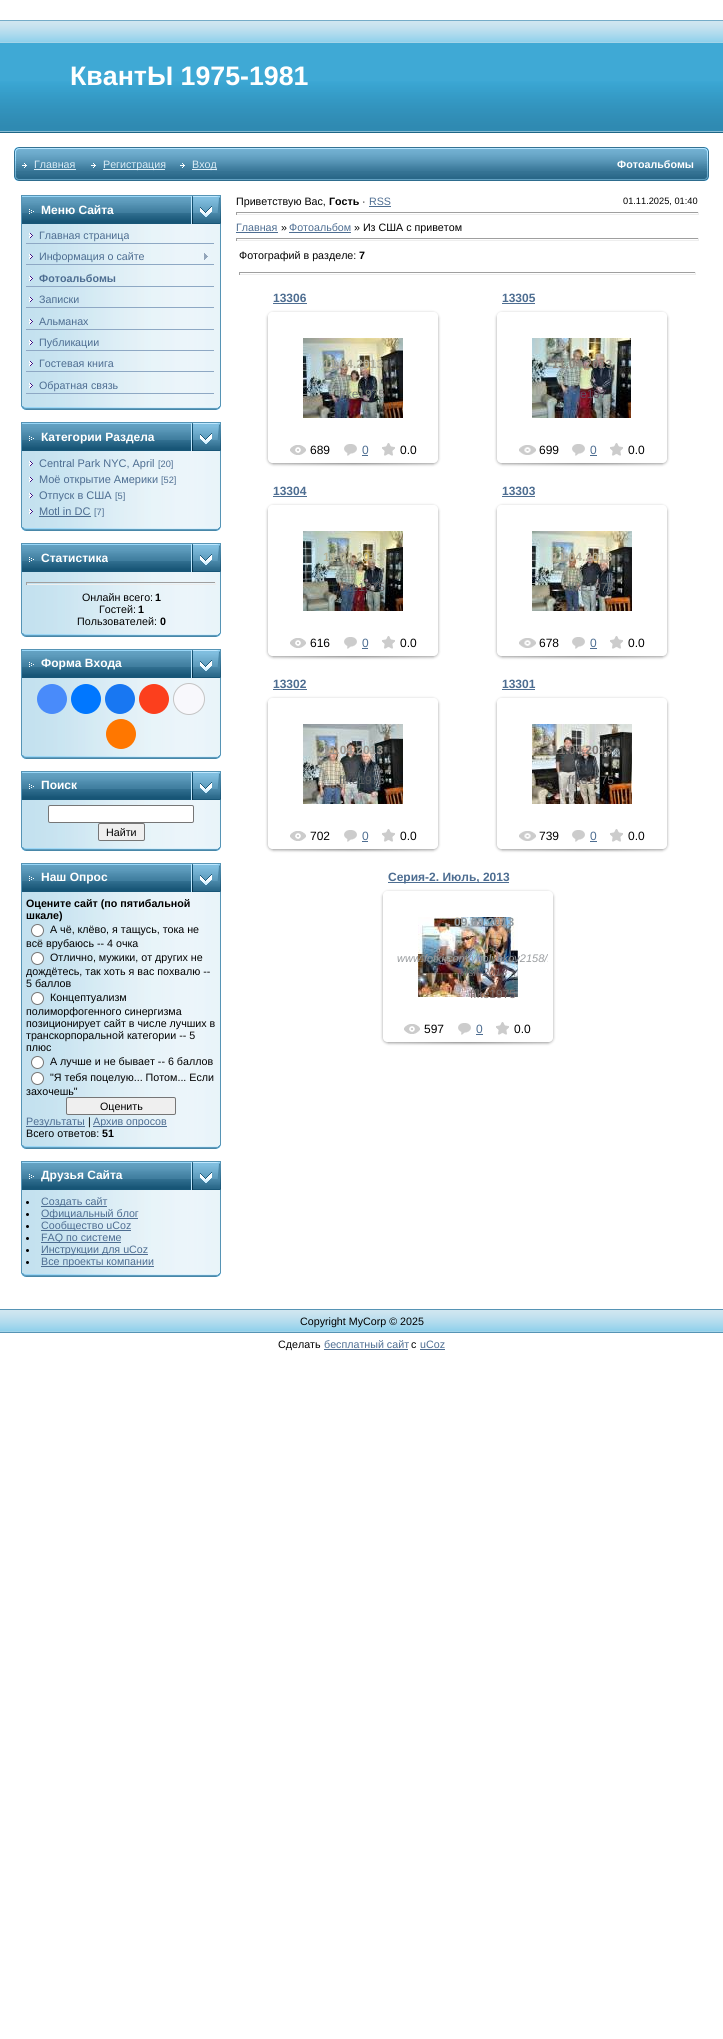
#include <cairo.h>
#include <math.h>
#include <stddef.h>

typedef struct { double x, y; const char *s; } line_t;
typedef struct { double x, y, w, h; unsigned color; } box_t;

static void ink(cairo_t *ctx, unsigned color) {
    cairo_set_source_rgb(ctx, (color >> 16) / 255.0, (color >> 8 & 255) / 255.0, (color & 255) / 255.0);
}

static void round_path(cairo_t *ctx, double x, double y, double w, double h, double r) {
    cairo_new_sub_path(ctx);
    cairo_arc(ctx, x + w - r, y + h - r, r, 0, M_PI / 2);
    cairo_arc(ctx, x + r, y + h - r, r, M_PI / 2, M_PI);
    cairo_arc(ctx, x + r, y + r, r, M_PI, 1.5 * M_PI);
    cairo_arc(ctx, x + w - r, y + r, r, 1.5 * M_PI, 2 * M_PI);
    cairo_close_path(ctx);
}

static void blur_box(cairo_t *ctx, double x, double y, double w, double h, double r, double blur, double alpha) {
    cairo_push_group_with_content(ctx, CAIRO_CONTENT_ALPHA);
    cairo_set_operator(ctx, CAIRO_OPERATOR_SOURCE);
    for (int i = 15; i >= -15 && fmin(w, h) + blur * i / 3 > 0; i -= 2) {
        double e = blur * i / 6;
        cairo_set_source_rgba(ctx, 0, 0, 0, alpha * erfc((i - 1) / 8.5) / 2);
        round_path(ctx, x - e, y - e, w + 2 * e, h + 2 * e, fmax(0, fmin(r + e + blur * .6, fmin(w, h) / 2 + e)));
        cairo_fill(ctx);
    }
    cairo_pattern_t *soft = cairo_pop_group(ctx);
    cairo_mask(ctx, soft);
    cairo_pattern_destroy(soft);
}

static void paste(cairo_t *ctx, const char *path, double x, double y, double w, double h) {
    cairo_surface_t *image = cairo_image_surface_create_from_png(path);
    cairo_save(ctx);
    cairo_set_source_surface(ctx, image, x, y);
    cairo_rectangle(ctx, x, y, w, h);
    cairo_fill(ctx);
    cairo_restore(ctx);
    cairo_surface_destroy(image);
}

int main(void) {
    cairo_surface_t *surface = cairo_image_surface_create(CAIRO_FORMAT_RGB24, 723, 2039);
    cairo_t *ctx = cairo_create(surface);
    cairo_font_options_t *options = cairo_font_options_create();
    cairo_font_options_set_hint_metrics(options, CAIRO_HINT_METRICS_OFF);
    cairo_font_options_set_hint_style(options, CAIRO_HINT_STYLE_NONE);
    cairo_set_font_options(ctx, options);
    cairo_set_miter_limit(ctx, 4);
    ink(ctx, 0xFFFFFF);
    cairo_paint(ctx);
    paste(ctx, "media/1.png", 0, 20, 723, 113);
    cairo_select_font_face(ctx, "Liberation Sans", CAIRO_FONT_SLANT_NORMAL, CAIRO_FONT_WEIGHT_BOLD);
    cairo_set_font_size(ctx, 26.75);
    ink(ctx, 0xFFFFFF);
    cairo_move_to(ctx, 70, 85);
    cairo_show_text(ctx, "КвантЫ 1975-1981");
    paste(ctx, "media/2.png", 14, 147, 5, 34);
    paste(ctx, "media/3.png", 19, 147, 479, 34);
    paste(ctx, "media/4.png", 22, 163, 5, 5);
    cairo_select_font_face(ctx, "Liberation Sans", CAIRO_FONT_SLANT_NORMAL, CAIRO_FONT_WEIGHT_NORMAL);
    cairo_set_font_size(ctx, 10.7);
    ink(ctx, 0xDDEEF7);
    cairo_move_to(ctx, 34, 168);
    cairo_show_text(ctx, "Главная");
    cairo_rectangle(ctx, 34, 169, 42, 1);
    cairo_fill(ctx);
    paste(ctx, "media/4.png", 91, 163, 5, 5);
    cairo_rectangle(ctx, 103, 169, 62, 1);
    cairo_fill(ctx);
    cairo_move_to(ctx, 103, 168);
    cairo_show_text(ctx, "Регистрация");
    paste(ctx, "media/4.png", 180, 163, 5, 5);
    cairo_rectangle(ctx, 192, 169, 25, 1);
    cairo_fill(ctx);
    cairo_move_to(ctx, 192, 168);
    cairo_show_text(ctx, "Вход");
    paste(ctx, "media/5.png", 498, 147, 206, 34);
    cairo_select_font_face(ctx, "Liberation Sans", CAIRO_FONT_SLANT_NORMAL, CAIRO_FONT_WEIGHT_BOLD);
    ink(ctx, 0xFFFFFF);
    cairo_move_to(ctx, 617, 168);
    cairo_show_text(ctx, "Фотоальбомы");
    paste(ctx, "media/6.png", 704, 147, 5, 34);
    paste(ctx, "media/7.png", 22, 195, 169, 29);
    ink(ctx, 0x5694B5);
    cairo_rectangle(ctx, 21, 195, 1, 29);
    cairo_fill(ctx);
    paste(ctx, "media/8.png", 29, 209, 5, 5);
    cairo_set_font_size(ctx, 12);
    ink(ctx, 0xFFFFFF);
    cairo_move_to(ctx, 41, 214);
    cairo_show_text(ctx, "Меню Сайта");
    paste(ctx, "media/9.png", 191, 195, 30, 1);
    paste(ctx, "media/10.png", 191, 196, 30, 28);
    paste(ctx, "media/11.png", 21, 224, 200, 181);
    paste(ctx, "media/12.png", 29, 233, 4, 5);
    ink(ctx, 0x8EA8C4);
    cairo_rectangle(ctx, 26, 243, 188, 1);
    cairo_fill(ctx);
    cairo_select_font_face(ctx, "Liberation Sans", CAIRO_FONT_SLANT_NORMAL, CAIRO_FONT_WEIGHT_NORMAL);
    cairo_set_font_size(ctx, 10.7);
    ink(ctx, 0x4D6D91);
    cairo_move_to(ctx, 39, 239);
    cairo_show_text(ctx, "Главная страница");
    paste(ctx, "media/12.png", 29, 254, 4, 5);
    ink(ctx, 0x8EA8C4);
    cairo_rectangle(ctx, 26, 264, 188, 1);
    cairo_fill(ctx);
    ink(ctx, 0x4D6D91);
    cairo_move_to(ctx, 39, 260);
    cairo_show_text(ctx, "Информация о сайте");
    paste(ctx, "media/13.png", 204, 253, 4, 7);
    paste(ctx, "media/12.png", 29, 276, 4, 5);
    ink(ctx, 0x8EA8C4);
    cairo_rectangle(ctx, 26, 286, 188, 1);
    cairo_fill(ctx);
    cairo_select_font_face(ctx, "Liberation Sans", CAIRO_FONT_SLANT_NORMAL, CAIRO_FONT_WEIGHT_BOLD);
    ink(ctx, 0x4D6D91);
    cairo_move_to(ctx, 39, 282);
    cairo_show_text(ctx, "Фотоальбомы");
    paste(ctx, "media/12.png", 29, 297, 4, 5);
    ink(ctx, 0x8EA8C4);
    cairo_rectangle(ctx, 26, 307, 188, 1);
    cairo_fill(ctx);
    cairo_select_font_face(ctx, "Liberation Sans", CAIRO_FONT_SLANT_NORMAL, CAIRO_FONT_WEIGHT_NORMAL);
    ink(ctx, 0x4D6D91);
    cairo_move_to(ctx, 39, 303);
    cairo_show_text(ctx, "Записки");
    paste(ctx, "media/12.png", 29, 319, 4, 5);
    ink(ctx, 0x8EA8C4);
    cairo_rectangle(ctx, 26, 329, 188, 1);
    cairo_fill(ctx);
    ink(ctx, 0x4D6D91);
    cairo_move_to(ctx, 39, 325);
    cairo_show_text(ctx, "Альманах");
    paste(ctx, "media/12.png", 29, 340, 4, 5);
    ink(ctx, 0x8EA8C4);
    cairo_rectangle(ctx, 26, 350, 188, 1);
    cairo_fill(ctx);
    ink(ctx, 0x4D6D91);
    cairo_move_to(ctx, 39, 346);
    cairo_show_text(ctx, "Публикации");
    paste(ctx, "media/12.png", 29, 361, 4, 5);
    ink(ctx, 0x8EA8C4);
    cairo_rectangle(ctx, 26, 371, 188, 1);
    cairo_fill(ctx);
    ink(ctx, 0x4D6D91);
    cairo_move_to(ctx, 39, 367);
    cairo_show_text(ctx, "Гостевая книга");
    paste(ctx, "media/12.png", 29, 383, 4, 5);
    ink(ctx, 0x8EA8C4);
    cairo_rectangle(ctx, 26, 393, 188, 1);
    cairo_fill(ctx);
    ink(ctx, 0x4D6D91);
    cairo_move_to(ctx, 39, 389);
    cairo_show_text(ctx, "Обратная связь");
    paste(ctx, "media/14.png", 21, 405, 200, 5);
    paste(ctx, "media/7.png", 22, 422, 169, 29);
    ink(ctx, 0x5694B5);
    cairo_rectangle(ctx, 21, 422, 1, 29);
    cairo_fill(ctx);
    paste(ctx, "media/8.png", 29, 436, 5, 5);
    cairo_select_font_face(ctx, "Liberation Sans", CAIRO_FONT_SLANT_NORMAL, CAIRO_FONT_WEIGHT_BOLD);
    cairo_set_font_size(ctx, 12);
    ink(ctx, 0xFFFFFF);
    cairo_move_to(ctx, 41, 441);
    cairo_show_text(ctx, "Категории Раздела");
    paste(ctx, "media/9.png", 191, 422, 30, 1);
    paste(ctx, "media/10.png", 191, 423, 30, 28);
    paste(ctx, "media/15.png", 21, 451, 200, 75);
    paste(ctx, "media/12.png", 29, 461, 4, 5);
    cairo_select_font_face(ctx, "Liberation Sans", CAIRO_FONT_SLANT_NORMAL, CAIRO_FONT_WEIGHT_NORMAL);
    cairo_set_font_size(ctx, 11);
    ink(ctx, 0x4D6D91);
    cairo_move_to(ctx, 39, 467);
    cairo_show_text(ctx, "Central Park NYC, April");
    cairo_set_font_size(ctx, 9.25);
    cairo_move_to(ctx, 158, 467);
    cairo_show_text(ctx, "[20]");
    paste(ctx, "media/12.png", 29, 477, 4, 5);
    cairo_set_font_size(ctx, 11);
    cairo_move_to(ctx, 39, 483);
    cairo_show_text(ctx, "Моё открытие Америки");
    cairo_set_font_size(ctx, 9.25);
    cairo_move_to(ctx, 161, 483);
    cairo_show_text(ctx, "[52]");
    paste(ctx, "media/12.png", 29, 493, 4, 5);
    cairo_set_font_size(ctx, 11);
    cairo_move_to(ctx, 39, 499);
    cairo_show_text(ctx, "Отпуск в США");
    cairo_set_font_size(ctx, 9.25);
    cairo_move_to(ctx, 115, 499);
    cairo_show_text(ctx, "[5]");
    paste(ctx, "media/12.png", 29, 509, 4, 5);
    cairo_set_font_size(ctx, 11);
    cairo_move_to(ctx, 39, 515);
    cairo_show_text(ctx, "Motl in DC");
    cairo_rectangle(ctx, 39, 516, 52, 1);
    cairo_fill(ctx);
    cairo_set_font_size(ctx, 9.25);
    cairo_move_to(ctx, 94, 515);
    cairo_show_text(ctx, "[7]");
    paste(ctx, "media/14.png", 21, 526, 200, 5);
    paste(ctx, "media/7.png", 22, 543, 169, 29);
    ink(ctx, 0x5694B5);
    cairo_rectangle(ctx, 21, 543, 1, 29);
    cairo_fill(ctx);
    paste(ctx, "media/8.png", 29, 557, 5, 5);
    cairo_select_font_face(ctx, "Liberation Sans", CAIRO_FONT_SLANT_NORMAL, CAIRO_FONT_WEIGHT_BOLD);
    cairo_set_font_size(ctx, 12);
    ink(ctx, 0xFFFFFF);
    cairo_move_to(ctx, 41, 562);
    cairo_show_text(ctx, "Статистика");
    paste(ctx, "media/9.png", 191, 543, 30, 1);
    paste(ctx, "media/10.png", 191, 544, 30, 28);
    paste(ctx, "media/16.png", 21, 572, 200, 60);
    {
        static const box_t items[] = {
            {26, 582, 190, 1, 0x9F9F9F},
            {215, 582, 1, 3, 0xEEEEEE},
            {26, 584, 190, 1, 0xEEEEEE},
            {26, 582, 1, 3, 0x9F9F9F},
        };
        for (size_t i = 0; i < sizeof items / sizeof *items; i++) {
            ink(ctx, items[i].color);
            cairo_rectangle(ctx, items[i].x, items[i].y, items[i].w, items[i].h);
            cairo_fill(ctx);
        }
    }
    cairo_select_font_face(ctx, "Liberation Sans", CAIRO_FONT_SLANT_NORMAL, CAIRO_FONT_WEIGHT_NORMAL);
    cairo_set_font_size(ctx, 10.7);
    ink(ctx, 0x000000);
    cairo_move_to(ctx, 82, 601);
    cairo_show_text(ctx, "Онлайн всего:");
    cairo_select_font_face(ctx, "Liberation Sans", CAIRO_FONT_SLANT_NORMAL, CAIRO_FONT_WEIGHT_BOLD);
    cairo_move_to(ctx, 155, 601);
    cairo_show_text(ctx, "1");
    cairo_select_font_face(ctx, "Liberation Sans", CAIRO_FONT_SLANT_NORMAL, CAIRO_FONT_WEIGHT_NORMAL);
    cairo_move_to(ctx, 99, 613);
    cairo_show_text(ctx, "Гостей:");
    cairo_select_font_face(ctx, "Liberation Sans", CAIRO_FONT_SLANT_NORMAL, CAIRO_FONT_WEIGHT_BOLD);
    cairo_move_to(ctx, 138, 613);
    cairo_show_text(ctx, "1");
    cairo_select_font_face(ctx, "Liberation Sans", CAIRO_FONT_SLANT_NORMAL, CAIRO_FONT_WEIGHT_NORMAL);
    cairo_move_to(ctx, 77, 625);
    cairo_show_text(ctx, "Пользователей:");
    cairo_select_font_face(ctx, "Liberation Sans", CAIRO_FONT_SLANT_NORMAL, CAIRO_FONT_WEIGHT_BOLD);
    cairo_move_to(ctx, 160, 625);
    cairo_show_text(ctx, "0");
    paste(ctx, "media/14.png", 21, 632, 200, 5);
    paste(ctx, "media/7.png", 22, 649, 169, 29);
    ink(ctx, 0x5694B5);
    cairo_rectangle(ctx, 21, 649, 1, 29);
    cairo_fill(ctx);
    paste(ctx, "media/17.png", 29, 662, 5, 5);
    cairo_set_font_size(ctx, 12);
    ink(ctx, 0xFFFFFF);
    cairo_move_to(ctx, 41, 667);
    cairo_show_text(ctx, "Форма Входа");
    paste(ctx, "media/9.png", 191, 649, 30, 1);
    paste(ctx, "media/10.png", 191, 650, 30, 28);
    paste(ctx, "media/18.png", 21, 678, 200, 76);
    ink(ctx, 0x498BFA);
    cairo_arc(ctx, 52, 699, 15, 0, 2 * M_PI);
    cairo_fill(ctx);
    ink(ctx, 0x0077FF);
    cairo_arc(ctx, 86, 699, 15, 0, 2 * M_PI);
    cairo_fill(ctx);
    ink(ctx, 0x1877F2);
    cairo_arc(ctx, 120, 699, 15, 0, 2 * M_PI);
    cairo_fill(ctx);
    ink(ctx, 0xFC3F1D);
    cairo_arc(ctx, 154, 699, 15, 0, 2 * M_PI);
    cairo_fill(ctx);
    ink(ctx, 0xF8F8FC);
    cairo_arc(ctx, 189, 699, 15.5, 0, 2 * M_PI);
    cairo_fill_preserve(ctx);
    ink(ctx, 0xC4C4C4);
    cairo_set_line_width(ctx, 1);
    cairo_stroke(ctx);
    ink(ctx, 0xFF7700);
    cairo_arc(ctx, 121, 734, 15, 0, 2 * M_PI);
    cairo_fill(ctx);
    paste(ctx, "media/14.png", 21, 754, 200, 5);
    paste(ctx, "media/7.png", 22, 771, 169, 29);
    ink(ctx, 0x5694B5);
    cairo_rectangle(ctx, 21, 771, 1, 29);
    cairo_fill(ctx);
    paste(ctx, "media/17.png", 29, 784, 5, 5);
    ink(ctx, 0xFFFFFF);
    cairo_move_to(ctx, 41, 789);
    cairo_show_text(ctx, "Поиск");
    paste(ctx, "media/9.png", 191, 771, 30, 1);
    paste(ctx, "media/10.png", 191, 772, 30, 28);
    paste(ctx, "media/19.png", 21, 800, 200, 46);
    round_path(ctx, 48.5, 805.5, 145, 17, 1.5);
    cairo_fill_preserve(ctx);
    ink(ctx, 0x767676);
    cairo_stroke(ctx);
    ink(ctx, 0xEFEFEF);
    round_path(ctx, 98.5, 823.5, 46, 17, 1.5);
    cairo_fill_preserve(ctx);
    ink(ctx, 0x767676);
    cairo_stroke(ctx);
    cairo_select_font_face(ctx, "Liberation Sans", CAIRO_FONT_SLANT_NORMAL, CAIRO_FONT_WEIGHT_NORMAL);
    cairo_set_font_size(ctx, 10.7);
    ink(ctx, 0x000000);
    cairo_move_to(ctx, 106, 836);
    cairo_show_text(ctx, "Найти");
    paste(ctx, "media/14.png", 21, 846, 200, 5);
    paste(ctx, "media/7.png", 22, 863, 169, 29);
    ink(ctx, 0x5694B5);
    cairo_rectangle(ctx, 21, 863, 1, 29);
    cairo_fill(ctx);
    paste(ctx, "media/17.png", 29, 876, 5, 5);
    cairo_select_font_face(ctx, "Liberation Sans", CAIRO_FONT_SLANT_NORMAL, CAIRO_FONT_WEIGHT_BOLD);
    cairo_set_font_size(ctx, 12);
    ink(ctx, 0xFFFFFF);
    cairo_move_to(ctx, 41, 881);
    cairo_show_text(ctx, "Наш Опрос");
    paste(ctx, "media/9.png", 191, 863, 30, 1);
    paste(ctx, "media/10.png", 191, 864, 30, 28);
    paste(ctx, "media/20.png", 21, 892, 200, 252);
    cairo_set_font_size(ctx, 10.7);
    ink(ctx, 0x000000);
    cairo_move_to(ctx, 26, 907);
    cairo_show_text(ctx, "Оцените сайт (по пятибальной");
    cairo_move_to(ctx, 26, 919);
    cairo_show_text(ctx, "шкале)");
    ink(ctx, 0xFFFFFF);
    cairo_new_path(ctx);
    cairo_arc(ctx, 37.5, 930.5, 6, 0, 2 * M_PI);
    cairo_fill_preserve(ctx);
    ink(ctx, 0x767676);
    cairo_stroke(ctx);
    cairo_select_font_face(ctx, "Liberation Sans", CAIRO_FONT_SLANT_NORMAL, CAIRO_FONT_WEIGHT_NORMAL);
    ink(ctx, 0x000000);
    cairo_move_to(ctx, 50, 933);
    cairo_show_text(ctx, "А чё, клёво, я тащусь, тока не");
    cairo_move_to(ctx, 26, 947);
    cairo_show_text(ctx, "всё врубаюсь -- 4 очка");
    ink(ctx, 0xFFFFFF);
    cairo_new_path(ctx);
    cairo_arc(ctx, 37.5, 958.5, 6, 0, 2 * M_PI);
    cairo_fill_preserve(ctx);
    ink(ctx, 0x767676);
    cairo_stroke(ctx);
    ink(ctx, 0x000000);
    {
        static const line_t items[] = {
            {50, 961, "Отлично, мужики, от других не"},
            {26, 975, "дождётесь, так хоть я вас похвалю --"},
            {26, 987, "5 баллов"},
        };
        for (size_t i = 0; i < sizeof items / sizeof *items; i++) {
            cairo_move_to(ctx, items[i].x, items[i].y);
            cairo_show_text(ctx, items[i].s);
        }
    }
    ink(ctx, 0xFFFFFF);
    cairo_new_path(ctx);
    cairo_arc(ctx, 37.5, 998.5, 6, 0, 2 * M_PI);
    cairo_fill_preserve(ctx);
    ink(ctx, 0x767676);
    cairo_stroke(ctx);
    ink(ctx, 0x000000);
    {
        static const line_t items[] = {
            {50, 1001, "Концептуализм"},
            {26, 1015, "полиморфогенного синергизма"},
            {26, 1027, "позиционирует сайт в числе лучших в"},
            {26, 1039, "транскорпоральной категории -- 5"},
            {26, 1051, "плюс"},
        };
        for (size_t i = 0; i < sizeof items / sizeof *items; i++) {
            cairo_move_to(ctx, items[i].x, items[i].y);
            cairo_show_text(ctx, items[i].s);
        }
    }
    ink(ctx, 0xFFFFFF);
    cairo_new_path(ctx);
    cairo_arc(ctx, 37.5, 1062.5, 6, 0, 2 * M_PI);
    cairo_fill_preserve(ctx);
    ink(ctx, 0x767676);
    cairo_stroke(ctx);
    ink(ctx, 0x000000);
    cairo_move_to(ctx, 50, 1065);
    cairo_show_text(ctx, "А лучше и не бывает -- 6 баллов");
    ink(ctx, 0xFFFFFF);
    cairo_new_path(ctx);
    cairo_arc(ctx, 37.5, 1078.5, 6, 0, 2 * M_PI);
    cairo_fill_preserve(ctx);
    ink(ctx, 0x767676);
    cairo_stroke(ctx);
    ink(ctx, 0x000000);
    cairo_move_to(ctx, 50, 1081);
    cairo_show_text(ctx, "\"Я тебя поцелую... Потом... Если");
    cairo_move_to(ctx, 26, 1095);
    cairo_show_text(ctx, "захочешь\"");
    ink(ctx, 0xEFEFEF);
    round_path(ctx, 66.5, 1097.5, 109, 17, 1.5);
    cairo_fill_preserve(ctx);
    ink(ctx, 0x767676);
    cairo_stroke(ctx);
    ink(ctx, 0x000000);
    cairo_move_to(ctx, 100, 1110);
    cairo_show_text(ctx, "Оценить");
    ink(ctx, 0x4D6D91);
    cairo_rectangle(ctx, 26, 1126, 59, 1);
    cairo_fill(ctx);
    cairo_move_to(ctx, 26, 1125);
    cairo_show_text(ctx, "Результаты");
    ink(ctx, 0x000000);
    cairo_move_to(ctx, 88, 1125);
    cairo_show_text(ctx, "|");
    ink(ctx, 0x4D6D91);
    cairo_rectangle(ctx, 93, 1126, 74, 1);
    cairo_fill(ctx);
    cairo_move_to(ctx, 93, 1125);
    cairo_show_text(ctx, "Архив опросов");
    ink(ctx, 0x000000);
    cairo_move_to(ctx, 26, 1137);
    cairo_show_text(ctx, "Всего ответов:");
    cairo_select_font_face(ctx, "Liberation Sans", CAIRO_FONT_SLANT_NORMAL, CAIRO_FONT_WEIGHT_BOLD);
    cairo_move_to(ctx, 102, 1137);
    cairo_show_text(ctx, "51");
    paste(ctx, "media/14.png", 21, 1144, 200, 5);
    paste(ctx, "media/7.png", 22, 1161, 169, 29);
    ink(ctx, 0x5694B5);
    cairo_rectangle(ctx, 21, 1161, 1, 29);
    cairo_fill(ctx);
    paste(ctx, "media/17.png", 29, 1174, 5, 5);
    cairo_set_font_size(ctx, 12);
    ink(ctx, 0xFFFFFF);
    cairo_move_to(ctx, 41, 1179);
    cairo_show_text(ctx, "Друзья Сайта");
    paste(ctx, "media/9.png", 191, 1161, 30, 1);
    paste(ctx, "media/10.png", 191, 1162, 30, 28);
    paste(ctx, "media/21.png", 21, 1190, 200, 82);
    ink(ctx, 0x000000);
    cairo_arc(ctx, 27.5, 1202.5, 1.5, 0, 2 * M_PI);
    cairo_fill(ctx);
    ink(ctx, 0x4D6D91);
    cairo_rectangle(ctx, 41, 1206, 66, 1);
    cairo_fill(ctx);
    cairo_select_font_face(ctx, "Liberation Sans", CAIRO_FONT_SLANT_NORMAL, CAIRO_FONT_WEIGHT_NORMAL);
    cairo_set_font_size(ctx, 10.7);
    cairo_move_to(ctx, 41, 1205);
    cairo_show_text(ctx, "Создать сайт");
    ink(ctx, 0x000000);
    cairo_new_path(ctx);
    cairo_arc(ctx, 27.5, 1214.5, 1.5, 0, 2 * M_PI);
    cairo_fill(ctx);
    ink(ctx, 0x4D6D91);
    cairo_rectangle(ctx, 41, 1218, 97, 1);
    cairo_fill(ctx);
    cairo_move_to(ctx, 41, 1217);
    cairo_show_text(ctx, "Официальный блог");
    ink(ctx, 0x000000);
    cairo_new_path(ctx);
    cairo_arc(ctx, 27.5, 1226.5, 1.5, 0, 2 * M_PI);
    cairo_fill(ctx);
    ink(ctx, 0x4D6D91);
    cairo_rectangle(ctx, 41, 1230, 90, 1);
    cairo_fill(ctx);
    cairo_move_to(ctx, 41, 1229);
    cairo_show_text(ctx, "Сообщество uCoz");
    ink(ctx, 0x000000);
    cairo_new_path(ctx);
    cairo_arc(ctx, 27.5, 1238.5, 1.5, 0, 2 * M_PI);
    cairo_fill(ctx);
    ink(ctx, 0x4D6D91);
    cairo_rectangle(ctx, 41, 1242, 80, 1);
    cairo_fill(ctx);
    cairo_move_to(ctx, 41, 1241);
    cairo_show_text(ctx, "FAQ по системе");
    ink(ctx, 0x000000);
    cairo_new_path(ctx);
    cairo_arc(ctx, 27.5, 1250.5, 1.5, 0, 2 * M_PI);
    cairo_fill(ctx);
    ink(ctx, 0x4D6D91);
    cairo_rectangle(ctx, 41, 1254, 107, 1);
    cairo_fill(ctx);
    cairo_move_to(ctx, 41, 1253);
    cairo_show_text(ctx, "Инструкции для uCoz");
    ink(ctx, 0x000000);
    cairo_new_path(ctx);
    cairo_arc(ctx, 27.5, 1262.5, 1.5, 0, 2 * M_PI);
    cairo_fill(ctx);
    ink(ctx, 0x4D6D91);
    cairo_rectangle(ctx, 41, 1266, 113, 1);
    cairo_fill(ctx);
    cairo_move_to(ctx, 41, 1265);
    cairo_show_text(ctx, "Все проекты компании");
    paste(ctx, "media/14.png", 21, 1272, 200, 5);
    ink(ctx, 0x000000);
    cairo_move_to(ctx, 236, 205);
    cairo_show_text(ctx, "Приветствую Вас,");
    cairo_select_font_face(ctx, "Liberation Sans", CAIRO_FONT_SLANT_NORMAL, CAIRO_FONT_WEIGHT_BOLD);
    cairo_move_to(ctx, 329, 205);
    cairo_show_text(ctx, "Гость");
    cairo_select_font_face(ctx, "Liberation Sans", CAIRO_FONT_SLANT_NORMAL, CAIRO_FONT_WEIGHT_NORMAL);
    cairo_move_to(ctx, 362, 205);
    cairo_show_text(ctx, "·");
    ink(ctx, 0x4D6D91);
    cairo_move_to(ctx, 369, 205);
    cairo_show_text(ctx, "RSS");
    cairo_rectangle(ctx, 369, 206, 22, 1);
    cairo_fill(ctx);
    cairo_set_font_size(ctx, 9.25);
    ink(ctx, 0x000000);
    cairo_move_to(ctx, 623, 204);
    cairo_show_text(ctx, "01.11.2025, 01:40");
    {
        static const box_t items[] = {
            {236, 212, 463, 1, 0x9F9F9F},
            {698, 212, 1, 3, 0xEEEEEE},
            {236, 214, 463, 1, 0xEEEEEE},
            {236, 212, 1, 3, 0x9F9F9F},
        };
        for (size_t i = 0; i < sizeof items / sizeof *items; i++) {
            ink(ctx, items[i].color);
            cairo_rectangle(ctx, items[i].x, items[i].y, items[i].w, items[i].h);
            cairo_fill(ctx);
        }
    }
    cairo_set_font_size(ctx, 10.7);
    ink(ctx, 0x4D6D91);
    cairo_move_to(ctx, 236, 231);
    cairo_show_text(ctx, "Главная");
    cairo_rectangle(ctx, 236, 232, 42, 1);
    cairo_fill(ctx);
    ink(ctx, 0x000000);
    cairo_move_to(ctx, 281, 231);
    cairo_show_text(ctx, "»");
    ink(ctx, 0x4D6D91);
    cairo_move_to(ctx, 289, 231);
    cairo_show_text(ctx, "Фотоальбом");
    cairo_rectangle(ctx, 289, 232, 62, 1);
    cairo_fill(ctx);
    ink(ctx, 0x000000);
    cairo_move_to(ctx, 354, 231);
    cairo_show_text(ctx, "» Из США с приветом");
    {
        static const box_t items[] = {
            {236, 238, 463, 1, 0x9F9F9F},
            {698, 238, 1, 3, 0xEEEEEE},
            {236, 240, 463, 1, 0xEEEEEE},
            {236, 238, 1, 3, 0x9F9F9F},
        };
        for (size_t i = 0; i < sizeof items / sizeof *items; i++) {
            ink(ctx, items[i].color);
            cairo_rectangle(ctx, items[i].x, items[i].y, items[i].w, items[i].h);
            cairo_fill(ctx);
        }
    }
    ink(ctx, 0x000000);
    cairo_move_to(ctx, 239, 259);
    cairo_show_text(ctx, "Фотографий в разделе:");
    cairo_select_font_face(ctx, "Liberation Sans", CAIRO_FONT_SLANT_NORMAL, CAIRO_FONT_WEIGHT_BOLD);
    cairo_move_to(ctx, 359, 259);
    cairo_show_text(ctx, "7");
    {
        static const box_t items[] = {
            {239, 272, 457, 1, 0x9F9F9F},
            {695, 272, 1, 3, 0xEEEEEE},
            {239, 274, 457, 1, 0xEEEEEE},
            {239, 272, 1, 3, 0x9F9F9F},
        };
        for (size_t i = 0; i < sizeof items / sizeof *items; i++) {
            ink(ctx, items[i].color);
            cairo_rectangle(ctx, items[i].x, items[i].y, items[i].w, items[i].h);
            cairo_fill(ctx);
        }
    }
    cairo_set_font_size(ctx, 12);
    ink(ctx, 0x4D6D91);
    cairo_move_to(ctx, 273, 302);
    cairo_show_text(ctx, "13306");
    cairo_rectangle(ctx, 273, 303, 34, 1);
    cairo_fill(ctx);
    cairo_save(ctx);
    cairo_set_fill_rule(ctx, CAIRO_FILL_RULE_EVEN_ODD);
    cairo_new_path(ctx);
    cairo_move_to(ctx, 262, 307);
    cairo_line_to(ctx, 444, 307);
    cairo_line_to(ctx, 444, 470);
    cairo_line_to(ctx, 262, 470);
    cairo_close_path(ctx);
    cairo_move_to(ctx, 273, 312);
    cairo_line_to(ctx, 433, 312);
    cairo_curve_to(ctx, 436, 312, 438, 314, 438, 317);
    cairo_line_to(ctx, 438, 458);
    cairo_curve_to(ctx, 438, 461, 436, 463, 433, 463);
    cairo_line_to(ctx, 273, 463);
    cairo_curve_to(ctx, 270, 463, 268, 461, 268, 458);
    cairo_line_to(ctx, 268, 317);
    cairo_curve_to(ctx, 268, 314, 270, 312, 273, 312);
    cairo_close_path(ctx);
    cairo_clip(ctx);
    ink(ctx, 0x000000);
    blur_box(ctx, 268, 313, 170, 151, 5, 1.5, 0.37);
    cairo_restore(ctx);
    paste(ctx, "media/22.png", 303, 338, 100, 80);
    ink(ctx, 0xACAA96);
    cairo_move_to(ctx, 323, 368);
    cairo_show_text(ctx, "11.04.2013");
    cairo_select_font_face(ctx, "Liberation Sans", CAIRO_FONT_SLANT_NORMAL, CAIRO_FONT_WEIGHT_NORMAL);
    ink(ctx, 0x787E75);
    cairo_move_to(ctx, 339, 398);
    cairo_show_text(ctx, "ffke1975");
    paste(ctx, "media/23.png", 290, 445, 16, 10);
    ink(ctx, 0x000000);
    cairo_move_to(ctx, 310, 454);
    cairo_show_text(ctx, "689");
    paste(ctx, "media/24.png", 344, 444, 13, 12);
    ink(ctx, 0x4D6D91);
    cairo_move_to(ctx, 362, 454);
    cairo_show_text(ctx, "0");
    cairo_rectangle(ctx, 362, 455, 6, 1);
    cairo_fill(ctx);
    paste(ctx, "media/25.png", 382, 443, 13, 13);
    ink(ctx, 0x000000);
    cairo_move_to(ctx, 400, 454);
    cairo_show_text(ctx, "0.0");
    paste(ctx, "media/26.png", 273, 463, 161, 3);
    cairo_select_font_face(ctx, "Liberation Sans", CAIRO_FONT_SLANT_NORMAL, CAIRO_FONT_WEIGHT_BOLD);
    ink(ctx, 0x4D6D91);
    cairo_move_to(ctx, 502, 302);
    cairo_show_text(ctx, "13305");
    cairo_rectangle(ctx, 502, 303, 33, 1);
    cairo_fill(ctx);
    cairo_save(ctx);
    cairo_set_fill_rule(ctx, CAIRO_FILL_RULE_EVEN_ODD);
    cairo_new_path(ctx);
    cairo_move_to(ctx, 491, 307);
    cairo_line_to(ctx, 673, 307);
    cairo_line_to(ctx, 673, 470);
    cairo_line_to(ctx, 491, 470);
    cairo_close_path(ctx);
    cairo_move_to(ctx, 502, 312);
    cairo_line_to(ctx, 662, 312);
    cairo_curve_to(ctx, 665, 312, 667, 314, 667, 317);
    cairo_line_to(ctx, 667, 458);
    cairo_curve_to(ctx, 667, 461, 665, 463, 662, 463);
    cairo_line_to(ctx, 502, 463);
    cairo_curve_to(ctx, 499, 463, 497, 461, 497, 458);
    cairo_line_to(ctx, 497, 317);
    cairo_curve_to(ctx, 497, 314, 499, 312, 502, 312);
    cairo_close_path(ctx);
    cairo_clip(ctx);
    ink(ctx, 0x000000);
    blur_box(ctx, 497, 313, 170, 151, 5, 1.5, 0.37);
    cairo_restore(ctx);
    paste(ctx, "media/27.png", 532, 338, 99, 80);
    ink(ctx, 0x8B877E);
    cairo_move_to(ctx, 552, 368);
    cairo_show_text(ctx, "11.04.2013");
    cairo_select_font_face(ctx, "Liberation Sans", CAIRO_FONT_SLANT_NORMAL, CAIRO_FONT_WEIGHT_NORMAL);
    ink(ctx, 0x5E5061);
    cairo_move_to(ctx, 580, 398);
    cairo_show_text(ctx, "e197");
    paste(ctx, "media/28.png", 519, 445, 17, 10);
    ink(ctx, 0x000000);
    cairo_move_to(ctx, 539, 454);
    cairo_show_text(ctx, "699");
    paste(ctx, "media/24.png", 572, 444, 13, 12);
    ink(ctx, 0x4D6D91);
    cairo_move_to(ctx, 590, 454);
    cairo_show_text(ctx, "0");
    cairo_rectangle(ctx, 590, 455, 7, 1);
    cairo_fill(ctx);
    paste(ctx, "media/25.png", 610, 443, 13, 13);
    ink(ctx, 0x000000);
    cairo_move_to(ctx, 628, 454);
    cairo_show_text(ctx, "0.0");
    paste(ctx, "media/26.png", 502, 463, 161, 3);
    cairo_select_font_face(ctx, "Liberation Sans", CAIRO_FONT_SLANT_NORMAL, CAIRO_FONT_WEIGHT_BOLD);
    ink(ctx, 0x4D6D91);
    cairo_move_to(ctx, 273, 495);
    cairo_show_text(ctx, "13304");
    cairo_rectangle(ctx, 273, 496, 34, 1);
    cairo_fill(ctx);
    cairo_save(ctx);
    cairo_set_fill_rule(ctx, CAIRO_FILL_RULE_EVEN_ODD);
    cairo_new_path(ctx);
    cairo_move_to(ctx, 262, 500);
    cairo_line_to(ctx, 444, 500);
    cairo_line_to(ctx, 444, 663);
    cairo_line_to(ctx, 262, 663);
    cairo_close_path(ctx);
    cairo_move_to(ctx, 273, 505);
    cairo_line_to(ctx, 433, 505);
    cairo_curve_to(ctx, 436, 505, 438, 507, 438, 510);
    cairo_line_to(ctx, 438, 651);
    cairo_curve_to(ctx, 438, 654, 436, 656, 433, 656);
    cairo_line_to(ctx, 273, 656);
    cairo_curve_to(ctx, 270, 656, 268, 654, 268, 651);
    cairo_line_to(ctx, 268, 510);
    cairo_curve_to(ctx, 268, 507, 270, 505, 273, 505);
    cairo_close_path(ctx);
    cairo_clip(ctx);
    ink(ctx, 0x000000);
    blur_box(ctx, 268, 506, 170, 151, 5, 1.5, 0.37);
    cairo_restore(ctx);
    paste(ctx, "media/29.png", 303, 531, 100, 80);
    ink(ctx, 0xB6B497);
    cairo_move_to(ctx, 323, 561);
    cairo_show_text(ctx, "11.04.2013");
    cairo_select_font_face(ctx, "Liberation Sans", CAIRO_FONT_SLANT_NORMAL, CAIRO_FONT_WEIGHT_NORMAL);
    ink(ctx, 0x676464);
    cairo_move_to(ctx, 339, 591);
    cairo_show_text(ctx, "ffke1975");
    paste(ctx, "media/23.png", 290, 638, 16, 10);
    ink(ctx, 0x000000);
    cairo_move_to(ctx, 310, 647);
    cairo_show_text(ctx, "616");
    paste(ctx, "media/24.png", 344, 637, 13, 12);
    ink(ctx, 0x4D6D91);
    cairo_move_to(ctx, 362, 647);
    cairo_show_text(ctx, "0");
    cairo_rectangle(ctx, 362, 648, 6, 1);
    cairo_fill(ctx);
    paste(ctx, "media/25.png", 382, 636, 13, 13);
    ink(ctx, 0x000000);
    cairo_move_to(ctx, 400, 647);
    cairo_show_text(ctx, "0.0");
    paste(ctx, "media/26.png", 273, 656, 161, 3);
    cairo_select_font_face(ctx, "Liberation Sans", CAIRO_FONT_SLANT_NORMAL, CAIRO_FONT_WEIGHT_BOLD);
    ink(ctx, 0x4D6D91);
    cairo_move_to(ctx, 502, 495);
    cairo_show_text(ctx, "13303");
    cairo_rectangle(ctx, 502, 496, 33, 1);
    cairo_fill(ctx);
    cairo_save(ctx);
    cairo_set_fill_rule(ctx, CAIRO_FILL_RULE_EVEN_ODD);
    cairo_new_path(ctx);
    cairo_move_to(ctx, 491, 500);
    cairo_line_to(ctx, 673, 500);
    cairo_line_to(ctx, 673, 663);
    cairo_line_to(ctx, 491, 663);
    cairo_close_path(ctx);
    cairo_move_to(ctx, 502, 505);
    cairo_line_to(ctx, 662, 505);
    cairo_curve_to(ctx, 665, 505, 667, 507, 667, 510);
    cairo_line_to(ctx, 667, 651);
    cairo_curve_to(ctx, 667, 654, 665, 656, 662, 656);
    cairo_line_to(ctx, 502, 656);
    cairo_curve_to(ctx, 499, 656, 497, 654, 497, 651);
    cairo_line_to(ctx, 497, 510);
    cairo_curve_to(ctx, 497, 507, 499, 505, 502, 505);
    cairo_close_path(ctx);
    cairo_clip(ctx);
    ink(ctx, 0x000000);
    blur_box(ctx, 497, 506, 170, 151, 5, 1.5, 0.37);
    cairo_restore(ctx);
    paste(ctx, "media/30.png", 532, 531, 100, 80);
    ink(ctx, 0xB3AD98);
    cairo_move_to(ctx, 552, 561);
    cairo_show_text(ctx, "11.04.2013");
    cairo_select_font_face(ctx, "Liberation Sans", CAIRO_FONT_SLANT_NORMAL, CAIRO_FONT_WEIGHT_NORMAL);
    ink(ctx, 0x6B7071);
    cairo_move_to(ctx, 568, 591);
    cairo_show_text(ctx, "ffke1975");
    paste(ctx, "media/28.png", 519, 638, 17, 10);
    ink(ctx, 0x000000);
    cairo_move_to(ctx, 539, 647);
    cairo_show_text(ctx, "678");
    paste(ctx, "media/24.png", 572, 637, 13, 12);
    ink(ctx, 0x4D6D91);
    cairo_move_to(ctx, 590, 647);
    cairo_show_text(ctx, "0");
    cairo_rectangle(ctx, 590, 648, 7, 1);
    cairo_fill(ctx);
    paste(ctx, "media/25.png", 610, 636, 13, 13);
    ink(ctx, 0x000000);
    cairo_move_to(ctx, 628, 647);
    cairo_show_text(ctx, "0.0");
    paste(ctx, "media/26.png", 502, 656, 161, 3);
    cairo_select_font_face(ctx, "Liberation Sans", CAIRO_FONT_SLANT_NORMAL, CAIRO_FONT_WEIGHT_BOLD);
    ink(ctx, 0x4D6D91);
    cairo_move_to(ctx, 273, 688);
    cairo_show_text(ctx, "13302");
    cairo_rectangle(ctx, 273, 689, 34, 1);
    cairo_fill(ctx);
    cairo_save(ctx);
    cairo_set_fill_rule(ctx, CAIRO_FILL_RULE_EVEN_ODD);
    cairo_new_path(ctx);
    cairo_move_to(ctx, 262, 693);
    cairo_line_to(ctx, 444, 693);
    cairo_line_to(ctx, 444, 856);
    cairo_line_to(ctx, 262, 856);
    cairo_close_path(ctx);
    cairo_move_to(ctx, 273, 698);
    cairo_line_to(ctx, 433, 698);
    cairo_curve_to(ctx, 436, 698, 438, 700, 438, 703);
    cairo_line_to(ctx, 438, 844);
    cairo_curve_to(ctx, 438, 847, 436, 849, 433, 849);
    cairo_line_to(ctx, 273, 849);
    cairo_curve_to(ctx, 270, 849, 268, 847, 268, 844);
    cairo_line_to(ctx, 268, 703);
    cairo_curve_to(ctx, 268, 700, 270, 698, 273, 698);
    cairo_close_path(ctx);
    cairo_clip(ctx);
    ink(ctx, 0x000000);
    blur_box(ctx, 268, 699, 170, 151, 5, 1.5, 0.37);
    cairo_restore(ctx);
    paste(ctx, "media/31.png", 303, 724, 100, 80);
    ink(ctx, 0x9B9791);
    cairo_move_to(ctx, 323, 754);
    cairo_show_text(ctx, "11.04.2013");
    cairo_select_font_face(ctx, "Liberation Sans", CAIRO_FONT_SLANT_NORMAL, CAIRO_FONT_WEIGHT_NORMAL);
    ink(ctx, 0x5A5F61);
    cairo_move_to(ctx, 339, 784);
    cairo_show_text(ctx, "ffke1975");
    paste(ctx, "media/23.png", 290, 831, 16, 10);
    ink(ctx, 0x000000);
    cairo_move_to(ctx, 310, 840);
    cairo_show_text(ctx, "702");
    paste(ctx, "media/24.png", 344, 830, 13, 12);
    ink(ctx, 0x4D6D91);
    cairo_move_to(ctx, 362, 840);
    cairo_show_text(ctx, "0");
    cairo_rectangle(ctx, 362, 841, 6, 1);
    cairo_fill(ctx);
    paste(ctx, "media/25.png", 382, 829, 13, 13);
    ink(ctx, 0x000000);
    cairo_move_to(ctx, 400, 840);
    cairo_show_text(ctx, "0.0");
    paste(ctx, "media/26.png", 273, 849, 161, 3);
    cairo_select_font_face(ctx, "Liberation Sans", CAIRO_FONT_SLANT_NORMAL, CAIRO_FONT_WEIGHT_BOLD);
    ink(ctx, 0x4D6D91);
    cairo_move_to(ctx, 502, 688);
    cairo_show_text(ctx, "13301");
    cairo_rectangle(ctx, 502, 689, 33, 1);
    cairo_fill(ctx);
    cairo_save(ctx);
    cairo_set_fill_rule(ctx, CAIRO_FILL_RULE_EVEN_ODD);
    cairo_new_path(ctx);
    cairo_move_to(ctx, 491, 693);
    cairo_line_to(ctx, 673, 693);
    cairo_line_to(ctx, 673, 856);
    cairo_line_to(ctx, 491, 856);
    cairo_close_path(ctx);
    cairo_move_to(ctx, 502, 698);
    cairo_line_to(ctx, 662, 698);
    cairo_curve_to(ctx, 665, 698, 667, 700, 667, 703);
    cairo_line_to(ctx, 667, 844);
    cairo_curve_to(ctx, 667, 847, 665, 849, 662, 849);
    cairo_line_to(ctx, 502, 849);
    cairo_curve_to(ctx, 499, 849, 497, 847, 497, 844);
    cairo_line_to(ctx, 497, 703);
    cairo_curve_to(ctx, 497, 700, 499, 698, 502, 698);
    cairo_close_path(ctx);
    cairo_clip(ctx);
    ink(ctx, 0x000000);
    blur_box(ctx, 497, 699, 170, 151, 5, 1.5, 0.37);
    cairo_restore(ctx);
    paste(ctx, "media/32.png", 532, 724, 100, 80);
    ink(ctx, 0x7E7975);
    cairo_move_to(ctx, 552, 754);
    cairo_show_text(ctx, "11.04.2013");
    cairo_select_font_face(ctx, "Liberation Sans", CAIRO_FONT_SLANT_NORMAL, CAIRO_FONT_WEIGHT_NORMAL);
    ink(ctx, 0x676464);
    cairo_move_to(ctx, 568, 784);
    cairo_show_text(ctx, "ffke1975");
    paste(ctx, "media/28.png", 519, 831, 17, 10);
    ink(ctx, 0x000000);
    cairo_move_to(ctx, 539, 840);
    cairo_show_text(ctx, "739");
    paste(ctx, "media/24.png", 572, 830, 13, 12);
    ink(ctx, 0x4D6D91);
    cairo_move_to(ctx, 590, 840);
    cairo_show_text(ctx, "0");
    cairo_rectangle(ctx, 590, 841, 7, 1);
    cairo_fill(ctx);
    paste(ctx, "media/25.png", 610, 829, 13, 13);
    ink(ctx, 0x000000);
    cairo_move_to(ctx, 628, 840);
    cairo_show_text(ctx, "0.0");
    paste(ctx, "media/26.png", 502, 849, 161, 3);
    ink(ctx, 0x4D6D91);
    cairo_rectangle(ctx, 388, 882, 121, 1);
    cairo_fill(ctx);
    cairo_select_font_face(ctx, "Liberation Sans", CAIRO_FONT_SLANT_NORMAL, CAIRO_FONT_WEIGHT_BOLD);
    cairo_move_to(ctx, 388, 881);
    cairo_show_text(ctx, "Серия-2. Июль, 2013");
    cairo_save(ctx);
    cairo_set_fill_rule(ctx, CAIRO_FILL_RULE_EVEN_ODD);
    cairo_new_path(ctx);
    cairo_move_to(ctx, 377, 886);
    cairo_line_to(ctx, 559, 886);
    cairo_line_to(ctx, 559, 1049);
    cairo_line_to(ctx, 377, 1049);
    cairo_close_path(ctx);
    cairo_move_to(ctx, 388, 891);
    cairo_line_to(ctx, 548, 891);
    cairo_curve_to(ctx, 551, 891, 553, 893, 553, 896);
    cairo_line_to(ctx, 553, 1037);
    cairo_curve_to(ctx, 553, 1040, 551, 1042, 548, 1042);
    cairo_line_to(ctx, 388, 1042);
    cairo_curve_to(ctx, 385, 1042, 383, 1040, 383, 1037);
    cairo_line_to(ctx, 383, 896);
    cairo_curve_to(ctx, 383, 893, 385, 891, 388, 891);
    cairo_close_path(ctx);
    cairo_clip(ctx);
    ink(ctx, 0x000000);
    blur_box(ctx, 383, 892, 170, 151, 5, 1.5, 0.37);
    cairo_restore(ctx);
    paste(ctx, "media/33.png", 418, 917, 100, 80);
    ink(ctx, 0x939A9F);
    cairo_move_to(ctx, 454, 926);
    cairo_show_text(ctx, "09.09.2013");
    cairo_select_font_face(ctx, "Liberation Sans", CAIRO_FONT_SLANT_ITALIC, CAIRO_FONT_WEIGHT_NORMAL);
    cairo_set_font_size(ctx, 11);
    ink(ctx, 0x9E8770);
    cairo_move_to(ctx, 489, 948);
    cairo_show_text(ctx, ".");
    cairo_save(ctx);
    cairo_rectangle(ctx, 388, 896, 160, 120);
    cairo_clip(ctx);
    ink(ctx, 0x999C9F);
    cairo_move_to(ctx, 397, 962);
    cairo_show_text(ctx, "www.fotki.com/ypolyakov2158/m");
    cairo_restore(ctx);
    ink(ctx, 0x766D6F);
    cairo_move_to(ctx, 460, 976);
    cairo_show_text(ctx, "visit-2013");
    cairo_select_font_face(ctx, "Liberation Sans", CAIRO_FONT_SLANT_NORMAL, CAIRO_FONT_WEIGHT_NORMAL);
    cairo_set_font_size(ctx, 12);
    ink(ctx, 0x7F7371);
    cairo_move_to(ctx, 470, 998);
    cairo_show_text(ctx, "ffke1975");
    paste(ctx, "media/23.png", 404, 1024, 16, 10);
    ink(ctx, 0x000000);
    cairo_move_to(ctx, 424, 1033);
    cairo_show_text(ctx, "597");
    paste(ctx, "media/24.png", 458, 1023, 13, 12);
    ink(ctx, 0x4D6D91);
    cairo_move_to(ctx, 476, 1033);
    cairo_show_text(ctx, "0");
    cairo_rectangle(ctx, 476, 1034, 7, 1);
    cairo_fill(ctx);
    paste(ctx, "media/25.png", 496, 1022, 13, 13);
    ink(ctx, 0x000000);
    cairo_move_to(ctx, 514, 1033);
    cairo_show_text(ctx, "0.0");
    paste(ctx, "media/26.png", 388, 1042, 161, 3);
    paste(ctx, "media/34.png", 0, 1309, 723, 24);
    cairo_set_font_size(ctx, 10.7);
    cairo_move_to(ctx, 300, 1325);
    cairo_show_text(ctx, "Copyright MyCorp © 2025");
    cairo_move_to(ctx, 278, 1348);
    cairo_show_text(ctx, "Сделать");
    ink(ctx, 0x4D6D91);
    cairo_move_to(ctx, 324, 1348);
    cairo_show_text(ctx, "бесплатный сайт");
    cairo_rectangle(ctx, 324, 1349, 84, 1);
    cairo_fill(ctx);
    ink(ctx, 0x000000);
    cairo_move_to(ctx, 411, 1348);
    cairo_show_text(ctx, "с");
    ink(ctx, 0x4D6D91);
    cairo_move_to(ctx, 420, 1348);
    cairo_show_text(ctx, "uCoz");
    cairo_rectangle(ctx, 420, 1349, 25, 1);
    cairo_fill(ctx);
    cairo_surface_write_to_png(surface, "image.png");
    cairo_font_options_destroy(options);
    cairo_destroy(ctx);
    cairo_surface_destroy(surface);
    return 0;
}
